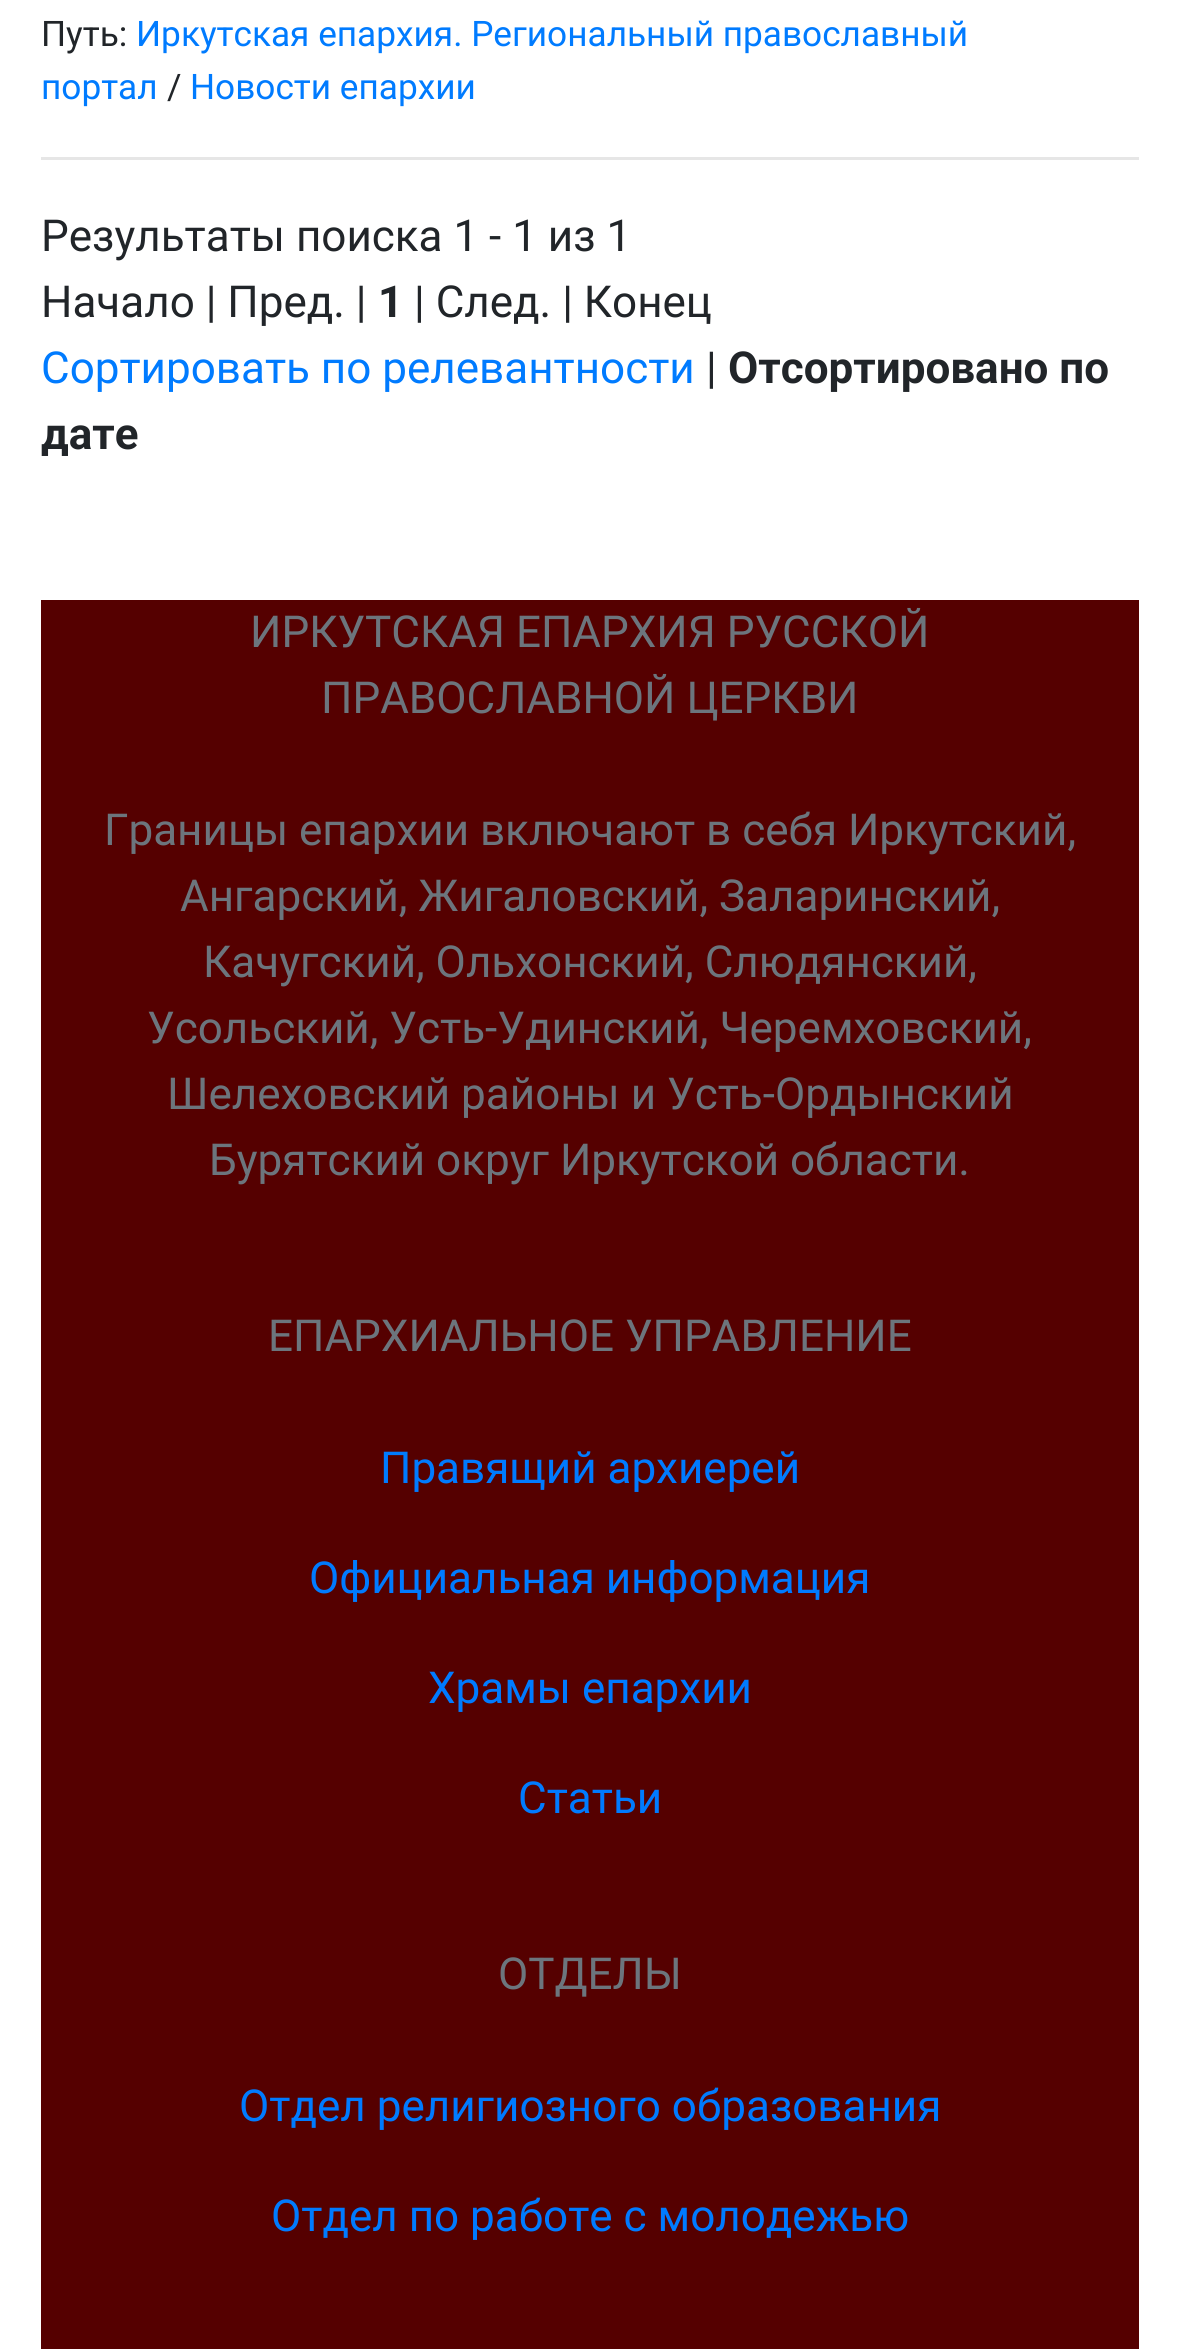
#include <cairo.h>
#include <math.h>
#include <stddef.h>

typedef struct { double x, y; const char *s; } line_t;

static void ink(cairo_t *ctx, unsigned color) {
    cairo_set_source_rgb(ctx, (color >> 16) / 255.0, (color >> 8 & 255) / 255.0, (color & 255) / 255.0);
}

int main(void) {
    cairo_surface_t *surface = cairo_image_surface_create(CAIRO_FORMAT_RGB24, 1179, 2349);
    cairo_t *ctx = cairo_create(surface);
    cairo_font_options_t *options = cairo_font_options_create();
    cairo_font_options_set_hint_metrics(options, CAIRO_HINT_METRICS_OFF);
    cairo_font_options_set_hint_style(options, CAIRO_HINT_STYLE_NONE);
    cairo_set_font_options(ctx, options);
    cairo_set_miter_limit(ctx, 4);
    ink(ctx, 0xFFFFFF);
    cairo_paint(ctx);
    cairo_select_font_face(ctx, "Roboto", CAIRO_FONT_SLANT_NORMAL, CAIRO_FONT_WEIGHT_NORMAL);
    cairo_set_font_size(ctx, 35.2);
    ink(ctx, 0x212529);
    cairo_move_to(ctx, 41, 46);
    cairo_show_text(ctx, "Путь:");
    ink(ctx, 0x007BFF);
    cairo_move_to(ctx, 136, 46);
    cairo_show_text(ctx, "Иркутская епархия. Региональный православный");
    cairo_move_to(ctx, 41, 99);
    cairo_show_text(ctx, "портал");
    ink(ctx, 0x212529);
    cairo_move_to(ctx, 167, 99);
    cairo_show_text(ctx, "/");
    ink(ctx, 0x007BFF);
    cairo_move_to(ctx, 190, 99);
    cairo_show_text(ctx, "Новости епархии");
    ink(ctx, 0xE6E6E6);
    cairo_rectangle(ctx, 41, 157, 1098, 3);
    cairo_fill(ctx);
    cairo_set_font_size(ctx, 44);
    ink(ctx, 0x212529);
    cairo_move_to(ctx, 41, 251);
    cairo_show_text(ctx, "Результаты поиска 1 - 1 из 1");
    cairo_move_to(ctx, 41, 317);
    cairo_show_text(ctx, "Начало | Пред. |");
    cairo_select_font_face(ctx, "Roboto", CAIRO_FONT_SLANT_NORMAL, CAIRO_FONT_WEIGHT_BOLD);
    cairo_move_to(ctx, 378, 317);
    cairo_show_text(ctx, "1");
    cairo_select_font_face(ctx, "Roboto", CAIRO_FONT_SLANT_NORMAL, CAIRO_FONT_WEIGHT_NORMAL);
    cairo_move_to(ctx, 414, 317);
    cairo_show_text(ctx, "| След. | Конец");
    ink(ctx, 0x007BFF);
    cairo_move_to(ctx, 41, 383);
    cairo_show_text(ctx, "Сортировать по релевантности");
    ink(ctx, 0x212529);
    cairo_move_to(ctx, 706, 383);
    cairo_show_text(ctx, "|");
    cairo_select_font_face(ctx, "Roboto", CAIRO_FONT_SLANT_NORMAL, CAIRO_FONT_WEIGHT_BOLD);
    cairo_move_to(ctx, 728, 383);
    cairo_show_text(ctx, "Отсортировано по");
    cairo_move_to(ctx, 41, 449);
    cairo_show_text(ctx, "дате");
    ink(ctx, 0x550000);
    cairo_rectangle(ctx, 41, 600, 1098, 1749);
    cairo_fill(ctx);
    cairo_select_font_face(ctx, "Roboto", CAIRO_FONT_SLANT_NORMAL, CAIRO_FONT_WEIGHT_NORMAL);
    ink(ctx, 0x6C757D);
    {
        static const line_t items[] = {
            {250, 647, "ИРКУТСКАЯ ЕПАРХИЯ РУССКОЙ"},
            {321, 713, "ПРАВОСЛАВНОЙ ЦЕРКВИ"},
            {104, 845, "Границы епархии включают в себя Иркутский,"},
            {180, 911, "Ангарский, Жигаловский, Заларинский,"},
            {203, 977, "Качугский, Ольхонский, Слюдянский,"},
            {147, 1043, "Усольский, Усть-Удинский, Черемховский,"},
            {167, 1109, "Шелеховский районы и Усть-Ордынский"},
            {209, 1175, "Бурятский округ Иркутской области."},
            {268, 1351, "ЕПАРХИАЛЬНОЕ УПРАВЛЕНИЕ"},
        };
        for (size_t i = 0; i < sizeof items / sizeof *items; i++) {
            cairo_move_to(ctx, items[i].x, items[i].y);
            cairo_show_text(ctx, items[i].s);
        }
    }
    ink(ctx, 0x007BFF);
    {
        static const line_t items[] = {
            {380, 1483, "Правящий архиерей"},
            {309, 1593, "Официальная информация"},
            {428, 1703, "Храмы епархии"},
            {518, 1813, "Статьи"},
        };
        for (size_t i = 0; i < sizeof items / sizeof *items; i++) {
            cairo_move_to(ctx, items[i].x, items[i].y);
            cairo_show_text(ctx, items[i].s);
        }
    }
    ink(ctx, 0x6C757D);
    cairo_move_to(ctx, 498, 1989);
    cairo_show_text(ctx, "ОТДЕЛЫ");
    ink(ctx, 0x007BFF);
    cairo_move_to(ctx, 239, 2121);
    cairo_show_text(ctx, "Отдел религиозного образования");
    cairo_move_to(ctx, 271, 2231);
    cairo_show_text(ctx, "Отдел по работе с молодежью");
    cairo_surface_write_to_png(surface, "image.png");
    cairo_font_options_destroy(options);
    cairo_destroy(ctx);
    cairo_surface_destroy(surface);
    return 0;
}
